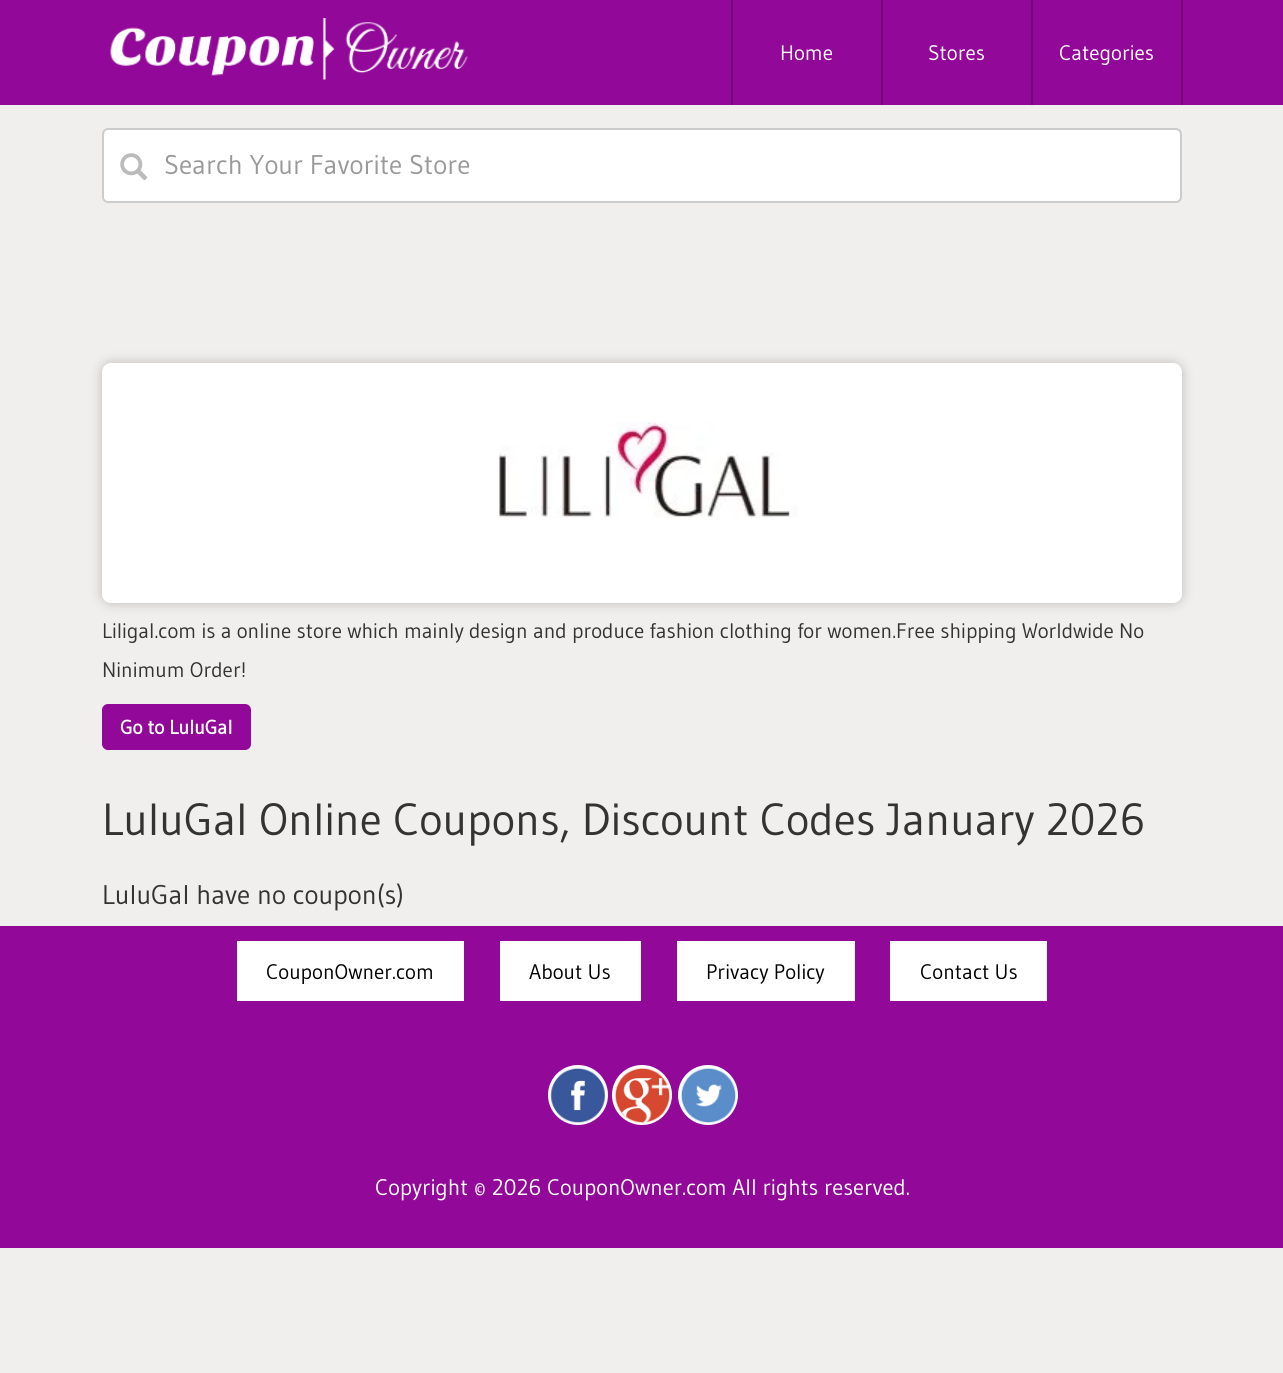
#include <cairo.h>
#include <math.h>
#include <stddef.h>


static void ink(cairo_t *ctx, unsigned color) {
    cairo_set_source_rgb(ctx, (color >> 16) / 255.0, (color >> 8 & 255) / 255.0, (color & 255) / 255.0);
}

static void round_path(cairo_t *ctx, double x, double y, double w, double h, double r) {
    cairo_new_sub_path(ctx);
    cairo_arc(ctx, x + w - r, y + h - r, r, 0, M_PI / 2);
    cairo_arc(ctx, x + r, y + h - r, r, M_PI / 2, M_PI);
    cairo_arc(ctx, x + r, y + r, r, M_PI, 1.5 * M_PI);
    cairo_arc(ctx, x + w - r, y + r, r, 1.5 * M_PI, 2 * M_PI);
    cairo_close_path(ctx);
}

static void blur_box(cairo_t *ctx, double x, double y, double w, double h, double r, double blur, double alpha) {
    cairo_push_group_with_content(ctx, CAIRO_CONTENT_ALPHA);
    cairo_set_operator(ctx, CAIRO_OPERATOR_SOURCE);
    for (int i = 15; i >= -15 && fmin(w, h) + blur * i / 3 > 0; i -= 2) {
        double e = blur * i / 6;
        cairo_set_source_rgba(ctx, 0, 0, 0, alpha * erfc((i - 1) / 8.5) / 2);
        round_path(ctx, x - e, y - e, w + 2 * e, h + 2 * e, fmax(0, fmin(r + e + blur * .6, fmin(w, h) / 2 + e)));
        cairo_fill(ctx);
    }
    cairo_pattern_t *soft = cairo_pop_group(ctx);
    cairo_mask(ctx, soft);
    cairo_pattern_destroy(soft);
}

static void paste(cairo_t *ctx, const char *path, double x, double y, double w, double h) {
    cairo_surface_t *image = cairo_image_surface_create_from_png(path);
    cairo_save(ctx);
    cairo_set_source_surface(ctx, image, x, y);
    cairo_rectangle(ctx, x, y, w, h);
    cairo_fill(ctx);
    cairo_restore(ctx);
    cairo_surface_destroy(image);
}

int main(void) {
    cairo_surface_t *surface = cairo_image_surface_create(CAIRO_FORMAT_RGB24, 1283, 1373);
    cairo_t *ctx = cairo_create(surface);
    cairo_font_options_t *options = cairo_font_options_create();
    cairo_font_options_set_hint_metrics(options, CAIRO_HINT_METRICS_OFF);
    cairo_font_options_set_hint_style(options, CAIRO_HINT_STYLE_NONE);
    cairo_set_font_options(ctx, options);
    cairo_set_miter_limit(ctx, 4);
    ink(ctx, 0xF1EFEE);
    cairo_paint(ctx);
    ink(ctx, 0x920999);
    cairo_rectangle(ctx, 0, 0, 1283, 105);
    cairo_fill(ctx);
    paste(ctx, "media/1.png", 110, 18, 358, 62);
    ink(ctx, 0x75077A);
    cairo_rectangle(ctx, 1181, 0, 2, 105);
    cairo_fill(ctx);
    cairo_rectangle(ctx, 731, 0, 2, 105);
    cairo_fill(ctx);
    cairo_select_font_face(ctx, "Gudea", CAIRO_FONT_SLANT_NORMAL, CAIRO_FONT_WEIGHT_NORMAL);
    cairo_set_font_size(ctx, 21);
    ink(ctx, 0xFFFFFF);
    cairo_move_to(ctx, 780, 60);
    cairo_show_text(ctx, "Home");
    ink(ctx, 0x75077A);
    cairo_rectangle(ctx, 881, 0, 2, 105);
    cairo_fill(ctx);
    ink(ctx, 0xFFFFFF);
    cairo_move_to(ctx, 928, 60);
    cairo_show_text(ctx, "Stores");
    ink(ctx, 0x75077A);
    cairo_rectangle(ctx, 1031, 0, 2, 105);
    cairo_fill(ctx);
    ink(ctx, 0xFFFFFF);
    cairo_move_to(ctx, 1059, 60);
    cairo_show_text(ctx, "Categories");
    round_path(ctx, 102, 128, 1080, 75, 6);
    cairo_fill(ctx);
    ink(ctx, 0xECECEC);
    cairo_new_path(ctx);
    cairo_move_to(ctx, 108, 130);
    cairo_line_to(ctx, 1176, 130);
    cairo_curve_to(ctx, 1178, 130, 1180, 133, 1180, 135);
    cairo_line_to(ctx, 1180, 199);
    cairo_curve_to(ctx, 1181, 198, 1181, 197, 1181, 196);
    cairo_line_to(ctx, 1181, 134);
    cairo_curve_to(ctx, 1181, 131, 1179, 129, 1176, 129);
    cairo_line_to(ctx, 109, 129);
    cairo_curve_to(ctx, 106, 129, 104, 131, 104, 134);
    cairo_line_to(ctx, 104, 135);
    cairo_curve_to(ctx, 104, 133, 106, 130, 108, 130);
    cairo_close_path(ctx);
    cairo_fill(ctx);
    round_path(ctx, 103, 129, 1078, 73, 5);
    ink(ctx, 0xCCCCCC);
    cairo_stroke(ctx);
    paste(ctx, "media/2.png", 120, 153, 28, 28);
    cairo_set_font_size(ctx, 27);
    ink(ctx, 0x999999);
    cairo_move_to(ctx, 164, 174);
    cairo_show_text(ctx, "Search Your Favorite Store");
    ink(ctx, 0x000000);
    blur_box(ctx, 102, 363, 1080, 240, 9, 6, 0.22);
    ink(ctx, 0xFFFFFF);
    round_path(ctx, 102, 363, 1080, 240, 9);
    cairo_fill(ctx);
    paste(ctx, "media/3.png", 498, 421, 300, 97);
    cairo_set_font_size(ctx, 21);
    ink(ctx, 0x333333);
    cairo_move_to(ctx, 102, 638);
    cairo_show_text(ctx, "Liligal.com is a online store which mainly design and produce fashion clothing for women.Free shipping Worldwide No");
    cairo_move_to(ctx, 102, 677);
    cairo_show_text(ctx, "Ninimum Order!");
    ink(ctx, 0x920999);
    round_path(ctx, 102, 704, 149, 46, 6);
    cairo_fill(ctx);
    cairo_select_font_face(ctx, "Gudea", CAIRO_FONT_SLANT_NORMAL, CAIRO_FONT_WEIGHT_BOLD);
    cairo_set_font_size(ctx, 19.5);
    ink(ctx, 0xFFFFFF);
    cairo_move_to(ctx, 120, 734);
    cairo_show_text(ctx, "Go to LuluGal");
    cairo_select_font_face(ctx, "Gudea", CAIRO_FONT_SLANT_NORMAL, CAIRO_FONT_WEIGHT_NORMAL);
    cairo_set_font_size(ctx, 45);
    ink(ctx, 0x333333);
    cairo_move_to(ctx, 102, 835);
    cairo_show_text(ctx, "LuluGal Online Coupons, Discount Codes January 2026");
    cairo_set_font_size(ctx, 27);
    cairo_move_to(ctx, 102, 904);
    cairo_show_text(ctx, "LuluGal have no coupon(s)");
    ink(ctx, 0x920999);
    cairo_rectangle(ctx, 0, 926, 1283, 322);
    cairo_fill(ctx);
    ink(ctx, 0xFFFFFF);
    cairo_rectangle(ctx, 237, 941, 227, 60);
    cairo_fill(ctx);
    cairo_set_font_size(ctx, 21);
    ink(ctx, 0x000000);
    cairo_move_to(ctx, 266, 979);
    cairo_show_text(ctx, "CouponOwner.com");
    ink(ctx, 0xFFFFFF);
    cairo_rectangle(ctx, 500, 941, 141, 60);
    cairo_fill(ctx);
    ink(ctx, 0x000000);
    cairo_move_to(ctx, 529, 979);
    cairo_show_text(ctx, "About Us");
    ink(ctx, 0xFFFFFF);
    cairo_rectangle(ctx, 677, 941, 178, 60);
    cairo_fill(ctx);
    ink(ctx, 0x000000);
    cairo_move_to(ctx, 706, 979);
    cairo_show_text(ctx, "Privacy Policy");
    ink(ctx, 0xFFFFFF);
    cairo_rectangle(ctx, 890, 941, 157, 60);
    cairo_fill(ctx);
    ink(ctx, 0x000000);
    cairo_move_to(ctx, 920, 979);
    cairo_show_text(ctx, "Contact Us");
    ink(ctx, 0xFFFFFF);
    cairo_new_path(ctx);
    cairo_arc(ctx, 578, 1095, 30, 0, 2 * M_PI);
    cairo_fill(ctx);
    paste(ctx, "media/4.png", 550, 1068, 56, 55);
    cairo_arc(ctx, 642, 1095, 30, 0, 2 * M_PI);
    cairo_fill(ctx);
    paste(ctx, "media/5.png", 615, 1068, 55, 56);
    cairo_arc(ctx, 708, 1095, 30, 0, 2 * M_PI);
    cairo_fill(ctx);
    paste(ctx, "media/6.png", 681, 1068, 55, 55);
    cairo_set_font_size(ctx, 22.5);
    cairo_move_to(ctx, 375, 1195);
    cairo_show_text(ctx, "Copyright © 2026 CouponOwner.com All rights reserved.");
    cairo_surface_write_to_png(surface, "image.png");
    cairo_font_options_destroy(options);
    cairo_destroy(ctx);
    cairo_surface_destroy(surface);
    return 0;
}
